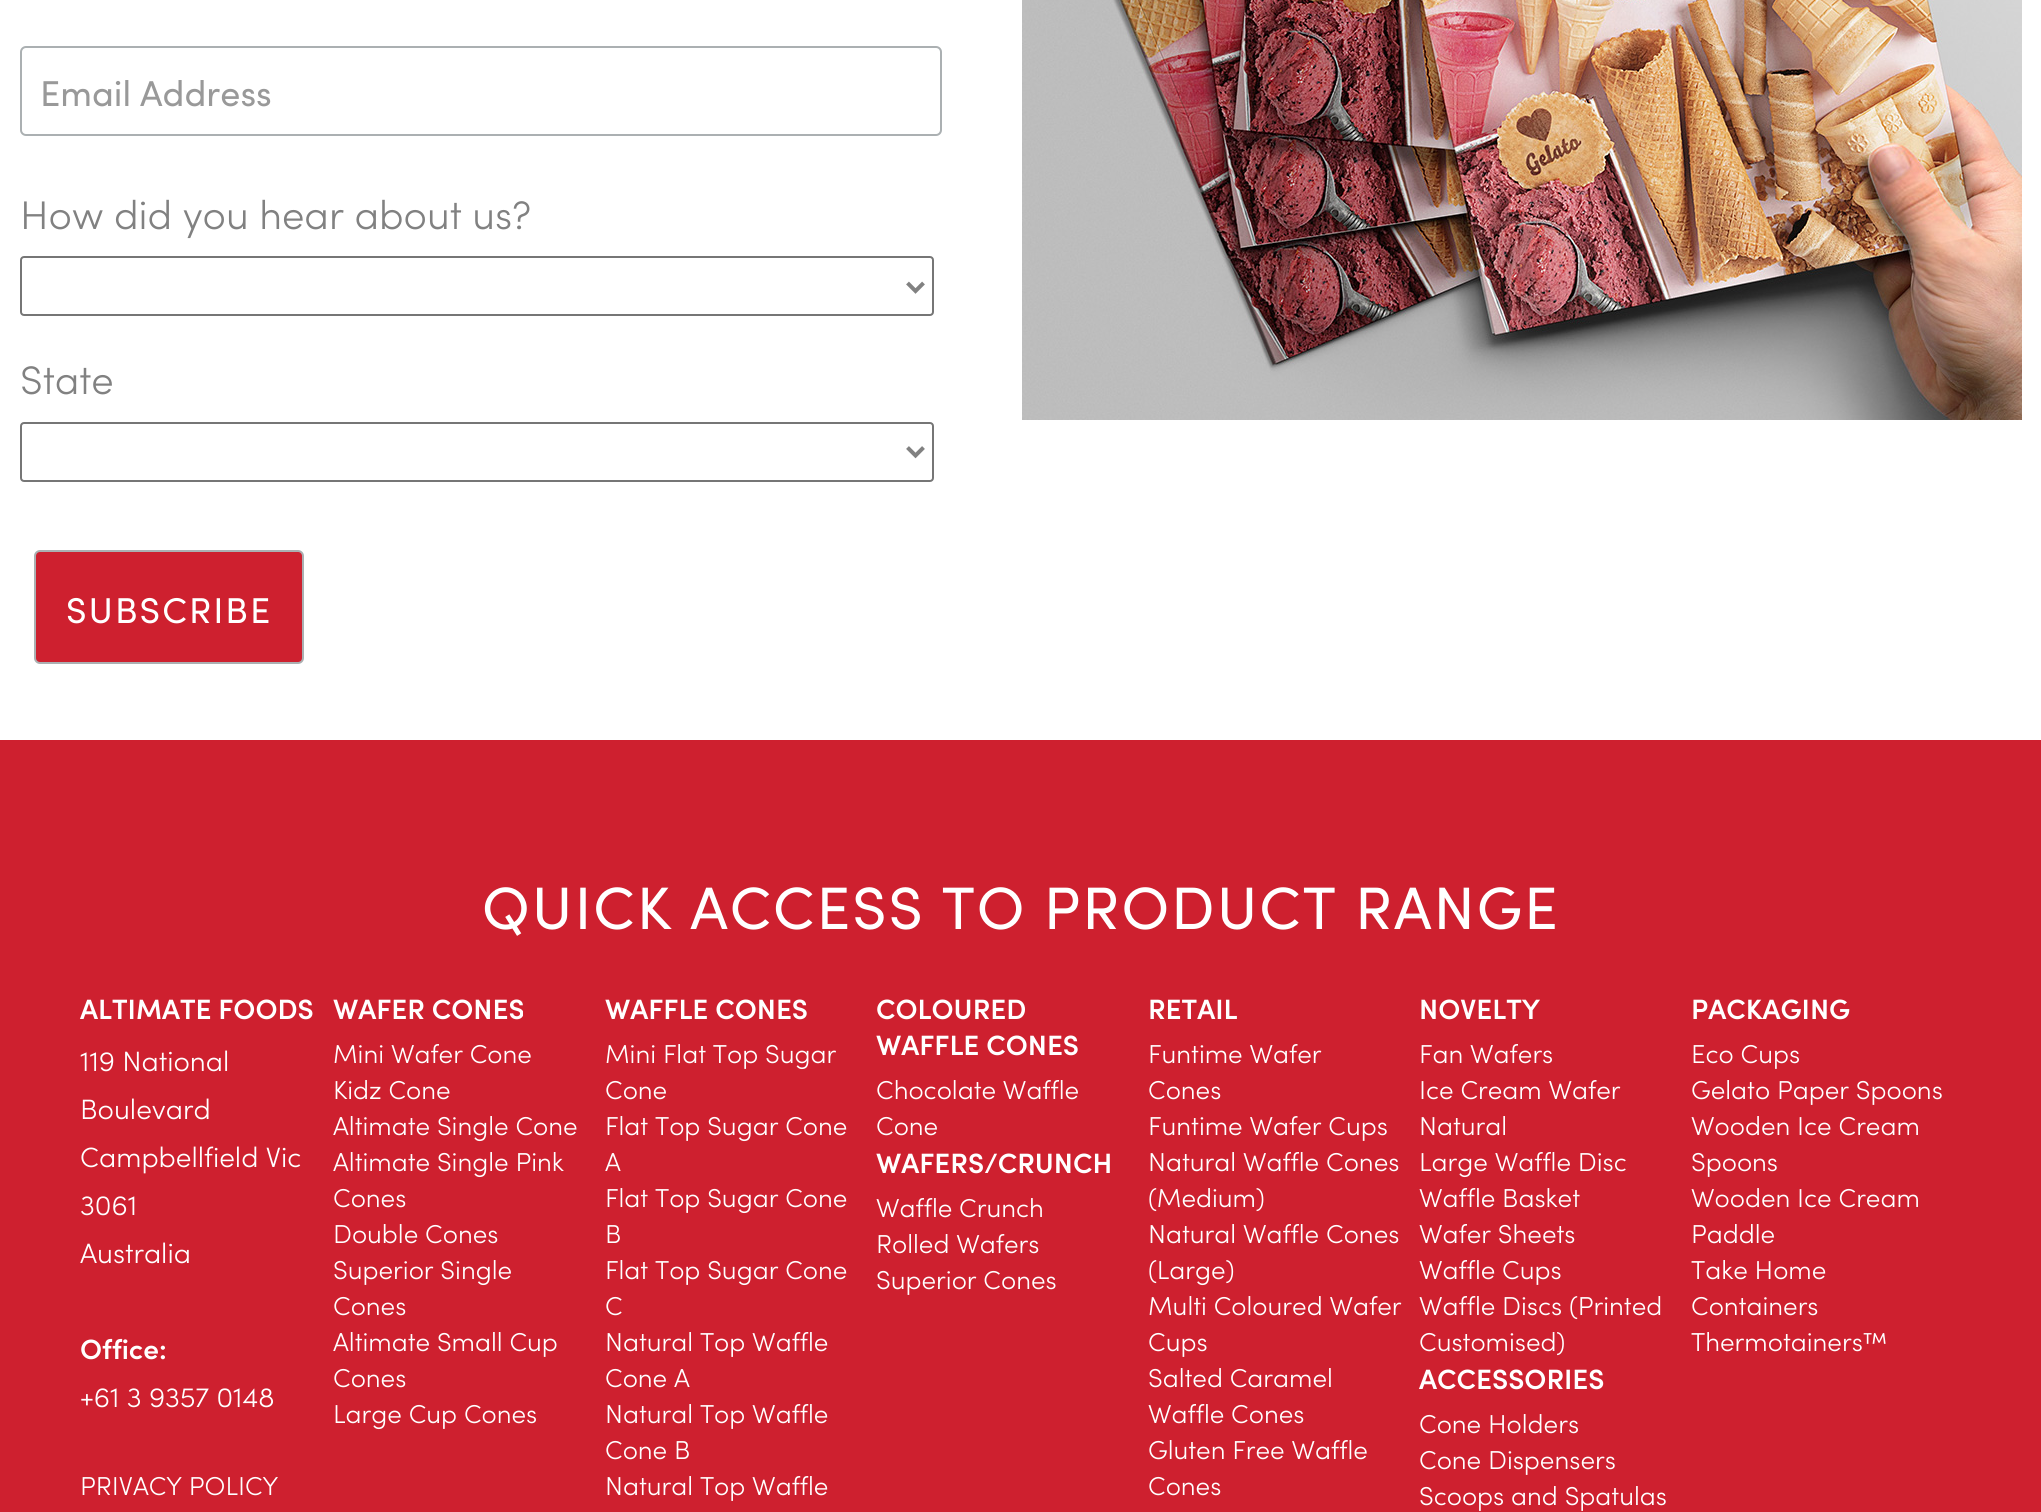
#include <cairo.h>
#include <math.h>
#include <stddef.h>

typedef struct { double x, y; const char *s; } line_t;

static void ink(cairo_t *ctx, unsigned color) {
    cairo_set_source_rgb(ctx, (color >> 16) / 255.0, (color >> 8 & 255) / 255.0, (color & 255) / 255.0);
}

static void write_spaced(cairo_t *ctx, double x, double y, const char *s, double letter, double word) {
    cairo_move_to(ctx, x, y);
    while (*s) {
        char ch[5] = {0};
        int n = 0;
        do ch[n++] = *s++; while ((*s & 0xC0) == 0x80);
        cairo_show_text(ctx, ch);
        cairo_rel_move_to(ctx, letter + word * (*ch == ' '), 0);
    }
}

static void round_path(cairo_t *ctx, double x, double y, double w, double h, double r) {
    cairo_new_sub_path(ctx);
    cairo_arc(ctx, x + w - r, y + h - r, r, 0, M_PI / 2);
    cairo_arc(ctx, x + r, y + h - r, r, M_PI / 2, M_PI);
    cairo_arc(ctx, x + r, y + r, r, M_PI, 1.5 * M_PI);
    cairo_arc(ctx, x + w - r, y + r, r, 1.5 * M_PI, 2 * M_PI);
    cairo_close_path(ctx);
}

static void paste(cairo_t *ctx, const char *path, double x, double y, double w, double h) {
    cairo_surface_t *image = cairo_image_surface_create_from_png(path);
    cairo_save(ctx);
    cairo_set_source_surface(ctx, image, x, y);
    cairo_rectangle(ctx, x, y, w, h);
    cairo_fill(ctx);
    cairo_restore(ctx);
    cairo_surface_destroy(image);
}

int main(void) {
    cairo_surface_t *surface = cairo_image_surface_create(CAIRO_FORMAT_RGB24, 2041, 1512);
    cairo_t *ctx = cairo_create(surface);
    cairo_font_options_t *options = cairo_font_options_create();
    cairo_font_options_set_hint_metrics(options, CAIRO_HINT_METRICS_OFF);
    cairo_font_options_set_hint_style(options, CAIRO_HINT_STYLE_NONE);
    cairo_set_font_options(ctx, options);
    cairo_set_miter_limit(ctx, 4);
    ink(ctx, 0xFFFFFF);
    cairo_paint(ctx);
    round_path(ctx, 21, 47, 920, 88, 5);
    ink(ctx, 0xABB0B2);
    cairo_stroke(ctx);
    cairo_select_font_face(ctx, "Sofia", CAIRO_FONT_SLANT_NORMAL, CAIRO_FONT_WEIGHT_NORMAL);
    cairo_set_font_size(ctx, 36);
    ink(ctx, 0x999999);
    cairo_move_to(ctx, 40, 106);
    cairo_show_text(ctx, "Email Address");
    cairo_select_font_face(ctx, "Sofia Light", CAIRO_FONT_SLANT_NORMAL, CAIRO_FONT_WEIGHT_NORMAL);
    cairo_set_font_size(ctx, 40);
    ink(ctx, 0x818181);
    cairo_move_to(ctx, 20, 229);
    cairo_show_text(ctx, "How did you hear about us?");
    round_path(ctx, 21, 257, 912, 58, 3);
    ink(ctx, 0x767676);
    cairo_stroke(ctx);
    cairo_new_path(ctx);
    cairo_move_to(ctx, 907.5, 283);
    cairo_line_to(ctx, 915.5, 291);
    cairo_line_to(ctx, 923.5, 283);
    ink(ctx, 0x818181);
    cairo_set_line_width(ctx, 4);
    cairo_stroke(ctx);
    cairo_move_to(ctx, 20, 394);
    cairo_show_text(ctx, "State");
    round_path(ctx, 21, 423, 912, 58, 3);
    ink(ctx, 0x767676);
    cairo_set_line_width(ctx, 2);
    cairo_stroke(ctx);
    cairo_new_path(ctx);
    cairo_move_to(ctx, 907.5, 447.5);
    cairo_line_to(ctx, 915.5, 455.5);
    cairo_line_to(ctx, 923.5, 447.5);
    ink(ctx, 0x818181);
    cairo_set_line_width(ctx, 4);
    cairo_stroke(ctx);
    ink(ctx, 0xCE202F);
    round_path(ctx, 35, 551, 268, 112, 5);
    cairo_fill_preserve(ctx);
    ink(ctx, 0xABB0B2);
    cairo_set_line_width(ctx, 2);
    cairo_stroke(ctx);
    cairo_select_font_face(ctx, "Sofia", CAIRO_FONT_SLANT_NORMAL, CAIRO_FONT_WEIGHT_NORMAL);
    cairo_set_font_size(ctx, 36);
    ink(ctx, 0xFFFFFF);
    write_spaced(ctx, 66, 623, "SUBSCRIBE", 2, 0);
    paste(ctx, "media/1.png", 1022, 0, 1000, 420);
    ink(ctx, 0xCE202F);
    cairo_rectangle(ctx, 0, 740, 2041, 772);
    cairo_fill(ctx);
    cairo_set_font_size(ctx, 60);
    ink(ctx, 0xFFFFFF);
    write_spaced(ctx, 482, 929, "QUICK ACCESS TO PRODUCT RANGE", 2, 0);
    cairo_select_font_face(ctx, "Sofia SemiBold", CAIRO_FONT_SLANT_NORMAL, CAIRO_FONT_WEIGHT_NORMAL);
    cairo_set_font_size(ctx, 28);
    cairo_move_to(ctx, 80, 1019);
    cairo_show_text(ctx, "ALTIMATE FOODS");
    cairo_select_font_face(ctx, "Sofia Light", CAIRO_FONT_SLANT_NORMAL, CAIRO_FONT_WEIGHT_NORMAL);
    {
        static const line_t items[] = {
            {80, 1071, "119 National"},
            {80, 1119, "Boulevard"},
            {80, 1167, "Campbellfield Vic"},
            {80, 1215, "3061"},
            {80, 1263, "Australia"},
        };
        for (size_t i = 0; i < sizeof items / sizeof *items; i++) {
            cairo_move_to(ctx, items[i].x, items[i].y);
            cairo_show_text(ctx, items[i].s);
        }
    }
    cairo_select_font_face(ctx, "Sofia SemiBold", CAIRO_FONT_SLANT_NORMAL, CAIRO_FONT_WEIGHT_NORMAL);
    cairo_move_to(ctx, 80, 1359);
    cairo_show_text(ctx, "Office:");
    cairo_select_font_face(ctx, "Sofia Light", CAIRO_FONT_SLANT_NORMAL, CAIRO_FONT_WEIGHT_NORMAL);
    cairo_move_to(ctx, 80, 1407);
    cairo_show_text(ctx, "+61 3 9357 0148");
    cairo_set_font_size(ctx, 26);
    cairo_move_to(ctx, 80, 1495);
    cairo_show_text(ctx, "PRIVACY POLICY");
    cairo_select_font_face(ctx, "Sofia SemiBold", CAIRO_FONT_SLANT_NORMAL, CAIRO_FONT_WEIGHT_NORMAL);
    cairo_set_font_size(ctx, 28);
    cairo_move_to(ctx, 333, 1019);
    cairo_show_text(ctx, "WAFER CONES");
    cairo_select_font_face(ctx, "Sofia Light", CAIRO_FONT_SLANT_NORMAL, CAIRO_FONT_WEIGHT_NORMAL);
    cairo_set_font_size(ctx, 26);
    {
        static const line_t items[] = {
            {333, 1063, "Mini Wafer Cone"},
            {333, 1099, "Kidz Cone"},
            {333, 1135, "Altimate Single Cone"},
            {333, 1171, "Altimate Single Pink"},
            {333, 1207, "Cones"},
            {333, 1243, "Double Cones"},
            {333, 1279, "Superior Single"},
            {333, 1315, "Cones"},
            {333, 1351, "Altimate Small Cup"},
            {333, 1387, "Cones"},
            {333, 1423, "Large Cup Cones"},
        };
        for (size_t i = 0; i < sizeof items / sizeof *items; i++) {
            cairo_move_to(ctx, items[i].x, items[i].y);
            cairo_show_text(ctx, items[i].s);
        }
    }
    cairo_select_font_face(ctx, "Sofia SemiBold", CAIRO_FONT_SLANT_NORMAL, CAIRO_FONT_WEIGHT_NORMAL);
    cairo_set_font_size(ctx, 28);
    cairo_move_to(ctx, 605, 1019);
    cairo_show_text(ctx, "WAFFLE CONES");
    cairo_select_font_face(ctx, "Sofia Light", CAIRO_FONT_SLANT_NORMAL, CAIRO_FONT_WEIGHT_NORMAL);
    cairo_set_font_size(ctx, 26);
    {
        static const line_t items[] = {
            {605, 1063, "Mini Flat Top Sugar"},
            {605, 1099, "Cone"},
            {605, 1135, "Flat Top Sugar Cone"},
            {605, 1171, "A"},
            {605, 1207, "Flat Top Sugar Cone"},
            {605, 1243, "B"},
            {605, 1279, "Flat Top Sugar Cone"},
            {605, 1315, "C"},
            {605, 1351, "Natural Top Waffle"},
            {605, 1387, "Cone A"},
            {605, 1423, "Natural Top Waffle"},
            {605, 1459, "Cone B"},
            {605, 1495, "Natural Top Waffle"},
        };
        for (size_t i = 0; i < sizeof items / sizeof *items; i++) {
            cairo_move_to(ctx, items[i].x, items[i].y);
            cairo_show_text(ctx, items[i].s);
        }
    }
    cairo_select_font_face(ctx, "Sofia SemiBold", CAIRO_FONT_SLANT_NORMAL, CAIRO_FONT_WEIGHT_NORMAL);
    cairo_set_font_size(ctx, 28);
    cairo_move_to(ctx, 876, 1019);
    cairo_show_text(ctx, "COLOURED");
    cairo_move_to(ctx, 876, 1055);
    cairo_show_text(ctx, "WAFFLE CONES");
    cairo_select_font_face(ctx, "Sofia Light", CAIRO_FONT_SLANT_NORMAL, CAIRO_FONT_WEIGHT_NORMAL);
    cairo_set_font_size(ctx, 26);
    cairo_move_to(ctx, 876, 1099);
    cairo_show_text(ctx, "Chocolate Waffle");
    cairo_move_to(ctx, 876, 1135);
    cairo_show_text(ctx, "Cone");
    cairo_select_font_face(ctx, "Sofia SemiBold", CAIRO_FONT_SLANT_NORMAL, CAIRO_FONT_WEIGHT_NORMAL);
    cairo_set_font_size(ctx, 28);
    cairo_move_to(ctx, 876, 1173);
    cairo_show_text(ctx, "WAFERS/CRUNCH");
    cairo_select_font_face(ctx, "Sofia Light", CAIRO_FONT_SLANT_NORMAL, CAIRO_FONT_WEIGHT_NORMAL);
    cairo_set_font_size(ctx, 26);
    {
        static const line_t items[] = {
            {876, 1217, "Waffle Crunch"},
            {876, 1253, "Rolled Wafers"},
            {876, 1289, "Superior Cones"},
        };
        for (size_t i = 0; i < sizeof items / sizeof *items; i++) {
            cairo_move_to(ctx, items[i].x, items[i].y);
            cairo_show_text(ctx, items[i].s);
        }
    }
    cairo_select_font_face(ctx, "Sofia SemiBold", CAIRO_FONT_SLANT_NORMAL, CAIRO_FONT_WEIGHT_NORMAL);
    cairo_set_font_size(ctx, 28);
    cairo_move_to(ctx, 1148, 1019);
    cairo_show_text(ctx, "RETAIL");
    cairo_select_font_face(ctx, "Sofia Light", CAIRO_FONT_SLANT_NORMAL, CAIRO_FONT_WEIGHT_NORMAL);
    cairo_set_font_size(ctx, 26);
    {
        static const line_t items[] = {
            {1148, 1063, "Funtime Wafer"},
            {1148, 1099, "Cones"},
            {1148, 1135, "Funtime Wafer Cups"},
            {1148, 1171, "Natural Waffle Cones"},
            {1148, 1207, "(Medium)"},
            {1148, 1243, "Natural Waffle Cones"},
            {1148, 1279, "(Large)"},
            {1148, 1315, "Multi Coloured Wafer"},
            {1148, 1351, "Cups"},
            {1148, 1387, "Salted Caramel"},
            {1148, 1423, "Waffle Cones"},
            {1148, 1459, "Gluten Free Waffle"},
            {1148, 1495, "Cones"},
        };
        for (size_t i = 0; i < sizeof items / sizeof *items; i++) {
            cairo_move_to(ctx, items[i].x, items[i].y);
            cairo_show_text(ctx, items[i].s);
        }
    }
    cairo_select_font_face(ctx, "Sofia SemiBold", CAIRO_FONT_SLANT_NORMAL, CAIRO_FONT_WEIGHT_NORMAL);
    cairo_set_font_size(ctx, 28);
    cairo_move_to(ctx, 1419, 1019);
    cairo_show_text(ctx, "NOVELTY");
    cairo_select_font_face(ctx, "Sofia Light", CAIRO_FONT_SLANT_NORMAL, CAIRO_FONT_WEIGHT_NORMAL);
    cairo_set_font_size(ctx, 26);
    {
        static const line_t items[] = {
            {1419, 1063, "Fan Wafers"},
            {1419, 1099, "Ice Cream Wafer"},
            {1419, 1135, "Natural"},
            {1419, 1171, "Large Waffle Disc"},
            {1419, 1207, "Waffle Basket"},
            {1419, 1243, "Wafer Sheets"},
            {1419, 1279, "Waffle Cups"},
            {1419, 1315, "Waffle Discs (Printed"},
            {1419, 1351, "Customised)"},
        };
        for (size_t i = 0; i < sizeof items / sizeof *items; i++) {
            cairo_move_to(ctx, items[i].x, items[i].y);
            cairo_show_text(ctx, items[i].s);
        }
    }
    cairo_select_font_face(ctx, "Sofia SemiBold", CAIRO_FONT_SLANT_NORMAL, CAIRO_FONT_WEIGHT_NORMAL);
    cairo_set_font_size(ctx, 28);
    cairo_move_to(ctx, 1419, 1389);
    cairo_show_text(ctx, "ACCESSORIES");
    cairo_select_font_face(ctx, "Sofia Light", CAIRO_FONT_SLANT_NORMAL, CAIRO_FONT_WEIGHT_NORMAL);
    cairo_set_font_size(ctx, 26);
    {
        static const line_t items[] = {
            {1419, 1433, "Cone Holders"},
            {1419, 1469, "Cone Dispensers"},
            {1419, 1505, "Scoops and Spatulas"},
        };
        for (size_t i = 0; i < sizeof items / sizeof *items; i++) {
            cairo_move_to(ctx, items[i].x, items[i].y);
            cairo_show_text(ctx, items[i].s);
        }
    }
    cairo_select_font_face(ctx, "Sofia SemiBold", CAIRO_FONT_SLANT_NORMAL, CAIRO_FONT_WEIGHT_NORMAL);
    cairo_set_font_size(ctx, 28);
    cairo_move_to(ctx, 1691, 1019);
    cairo_show_text(ctx, "PACKAGING");
    cairo_select_font_face(ctx, "Sofia Light", CAIRO_FONT_SLANT_NORMAL, CAIRO_FONT_WEIGHT_NORMAL);
    cairo_set_font_size(ctx, 26);
    {
        static const line_t items[] = {
            {1691, 1063, "Eco Cups"},
            {1691, 1099, "Gelato Paper Spoons"},
            {1691, 1135, "Wooden Ice Cream"},
            {1691, 1171, "Spoons"},
            {1691, 1207, "Wooden Ice Cream"},
            {1691, 1243, "Paddle"},
            {1691, 1279, "Take Home"},
            {1691, 1315, "Containers"},
            {1691, 1351, "Thermotainers™"},
        };
        for (size_t i = 0; i < sizeof items / sizeof *items; i++) {
            cairo_move_to(ctx, items[i].x, items[i].y);
            cairo_show_text(ctx, items[i].s);
        }
    }
    cairo_surface_write_to_png(surface, "image.png");
    cairo_font_options_destroy(options);
    cairo_destroy(ctx);
    cairo_surface_destroy(surface);
    return 0;
}
